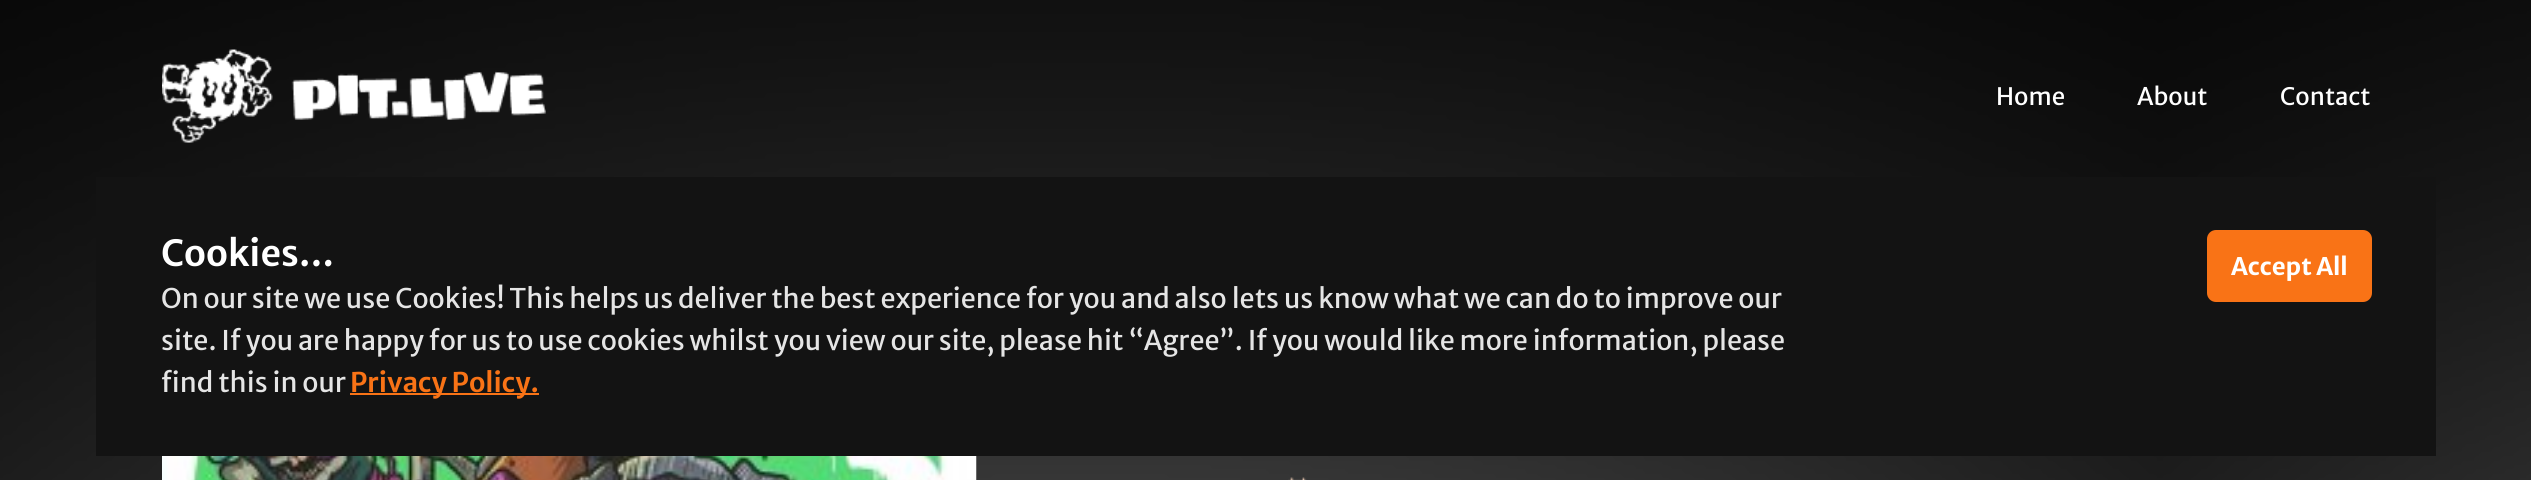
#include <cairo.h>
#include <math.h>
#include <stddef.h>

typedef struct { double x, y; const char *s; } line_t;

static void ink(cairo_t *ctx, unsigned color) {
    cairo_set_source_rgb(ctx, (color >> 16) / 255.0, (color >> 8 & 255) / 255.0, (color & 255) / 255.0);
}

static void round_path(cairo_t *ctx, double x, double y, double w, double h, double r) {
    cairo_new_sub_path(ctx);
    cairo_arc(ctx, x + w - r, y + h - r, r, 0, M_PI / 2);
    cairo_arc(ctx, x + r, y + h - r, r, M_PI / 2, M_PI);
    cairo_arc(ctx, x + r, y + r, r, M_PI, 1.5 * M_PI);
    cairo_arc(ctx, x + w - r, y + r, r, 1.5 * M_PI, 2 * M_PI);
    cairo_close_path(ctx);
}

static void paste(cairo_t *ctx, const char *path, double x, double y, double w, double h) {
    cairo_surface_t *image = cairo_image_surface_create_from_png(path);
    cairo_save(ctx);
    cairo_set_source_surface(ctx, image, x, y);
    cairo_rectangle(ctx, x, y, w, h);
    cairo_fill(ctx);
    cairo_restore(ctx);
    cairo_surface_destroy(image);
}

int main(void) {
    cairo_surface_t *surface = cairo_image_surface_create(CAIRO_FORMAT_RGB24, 2531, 480);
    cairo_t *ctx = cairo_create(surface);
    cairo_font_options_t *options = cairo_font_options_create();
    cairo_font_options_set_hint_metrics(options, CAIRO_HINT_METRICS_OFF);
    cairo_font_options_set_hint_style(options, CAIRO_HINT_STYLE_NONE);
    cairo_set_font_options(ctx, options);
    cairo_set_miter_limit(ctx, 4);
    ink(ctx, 0x000000);
    cairo_paint(ctx);
    paste(ctx, "media/1.png", 0, 0, 2531, 480);
    paste(ctx, "media/2.png", 162, 49, 384, 94);
    cairo_select_font_face(ctx, "Merriweather Sans", CAIRO_FONT_SLANT_NORMAL, CAIRO_FONT_WEIGHT_NORMAL);
    cairo_set_font_size(ctx, 24);
    ink(ctx, 0xFFFFFF);
    {
        static const line_t items[] = {
            {1996, 105, "Home"},
            {2137, 105, "About"},
            {2280, 105, "Contact"},
        };
        for (size_t i = 0; i < sizeof items / sizeof *items; i++) {
            cairo_move_to(ctx, items[i].x, items[i].y);
            cairo_show_text(ctx, items[i].s);
        }
    }
    ink(ctx, 0x131313);
    cairo_rectangle(ctx, 96, 177, 2340, 279);
    cairo_fill(ctx);
    cairo_select_font_face(ctx, "Merriweather Sans SemiBold", CAIRO_FONT_SLANT_NORMAL, CAIRO_FONT_WEIGHT_NORMAL);
    cairo_set_font_size(ctx, 36);
    ink(ctx, 0xFFFFFF);
    cairo_move_to(ctx, 161, 266);
    cairo_show_text(ctx, "Cookies…");
    cairo_select_font_face(ctx, "Merriweather Sans", CAIRO_FONT_SLANT_NORMAL, CAIRO_FONT_WEIGHT_NORMAL);
    cairo_set_font_size(ctx, 27);
    ink(ctx, 0xE5E5E5);
    {
        static const line_t items[] = {
            {161, 308, "On our site we use Cookies! This helps us deliver the best experience for you and also lets us know what we can do to improve our"},
            {161, 350, "site. If you are happy for us to use cookies whilst you view our site, please hit “Agree”. If you would like more information, please"},
            {161, 392, "find this in our"},
        };
        for (size_t i = 0; i < sizeof items / sizeof *items; i++) {
            cairo_move_to(ctx, items[i].x, items[i].y);
            cairo_show_text(ctx, items[i].s);
        }
    }
    ink(ctx, 0xF97316);
    cairo_rectangle(ctx, 350, 393, 189, 2);
    cairo_fill(ctx);
    cairo_select_font_face(ctx, "Merriweather Sans SemiBold", CAIRO_FONT_SLANT_NORMAL, CAIRO_FONT_WEIGHT_NORMAL);
    cairo_move_to(ctx, 350, 392);
    cairo_show_text(ctx, "Privacy Policy.");
    round_path(ctx, 2207, 230, 165, 72, 9);
    cairo_fill(ctx);
    cairo_select_font_face(ctx, "Merriweather Sans", CAIRO_FONT_SLANT_NORMAL, CAIRO_FONT_WEIGHT_BOLD);
    cairo_set_font_size(ctx, 24);
    ink(ctx, 0xFFFFFF);
    cairo_move_to(ctx, 2231, 275);
    cairo_show_text(ctx, "Accept All");
    paste(ctx, "media/3.png", 162, 456, 815, 24);
    paste(ctx, "media/4.png", 1288, 477, 19, 3);
    cairo_surface_write_to_png(surface, "image.png");
    cairo_font_options_destroy(options);
    cairo_destroy(ctx);
    cairo_surface_destroy(surface);
    return 0;
}
